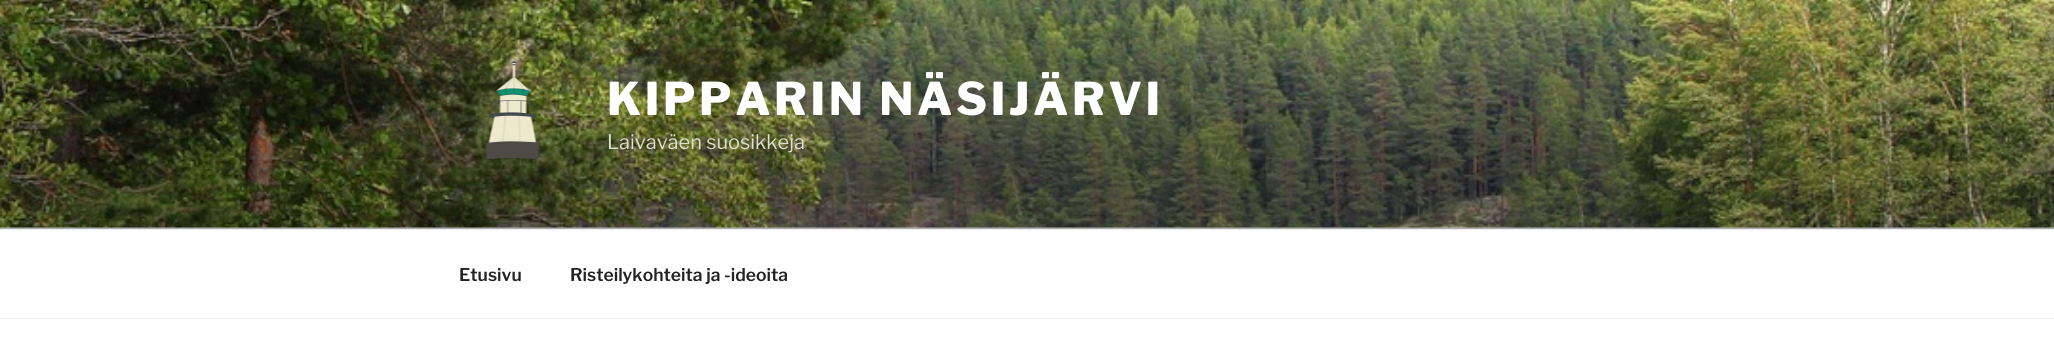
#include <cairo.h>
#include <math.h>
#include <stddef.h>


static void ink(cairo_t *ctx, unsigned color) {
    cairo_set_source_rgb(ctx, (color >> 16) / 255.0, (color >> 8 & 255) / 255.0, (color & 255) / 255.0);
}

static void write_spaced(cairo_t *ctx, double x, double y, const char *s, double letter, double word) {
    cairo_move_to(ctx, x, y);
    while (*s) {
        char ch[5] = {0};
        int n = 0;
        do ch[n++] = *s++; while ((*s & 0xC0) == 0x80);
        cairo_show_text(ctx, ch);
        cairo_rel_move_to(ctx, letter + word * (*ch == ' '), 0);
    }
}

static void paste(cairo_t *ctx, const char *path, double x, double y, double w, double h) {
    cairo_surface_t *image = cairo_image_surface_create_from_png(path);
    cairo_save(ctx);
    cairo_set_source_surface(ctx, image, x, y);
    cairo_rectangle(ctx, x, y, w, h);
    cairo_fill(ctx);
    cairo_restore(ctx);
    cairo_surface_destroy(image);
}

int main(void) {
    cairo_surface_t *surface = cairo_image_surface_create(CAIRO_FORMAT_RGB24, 2054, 347);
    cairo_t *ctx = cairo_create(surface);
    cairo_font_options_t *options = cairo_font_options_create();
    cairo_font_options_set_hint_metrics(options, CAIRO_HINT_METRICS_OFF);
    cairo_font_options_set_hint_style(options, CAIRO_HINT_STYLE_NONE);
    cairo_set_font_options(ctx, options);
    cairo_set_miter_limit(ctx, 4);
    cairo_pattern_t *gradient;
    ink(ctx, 0xFFFFFF);
    cairo_paint(ctx);
    ink(ctx, 0xFAFAFA);
    cairo_rectangle(ctx, 0, 227, 2054, 2);
    cairo_fill(ctx);
    paste(ctx, "media/1.png", 0, 0, 2054, 228);
    gradient = cairo_pattern_create_linear(1028, 0, 1028, 229);
    cairo_pattern_add_color_stop_rgba(gradient, 0, 0, 0, 0, 0);
    cairo_pattern_add_color_stop_rgba(gradient, 0.75, 0, 0, 0, 0.3);
    cairo_pattern_add_color_stop_rgba(gradient, 1, 0, 0, 0, 0.3);
    cairo_set_source(ctx, gradient);
    cairo_pattern_destroy(gradient);
    cairo_rectangle(ctx, 0, 12, 2054, 217);
    cairo_fill(ctx);
    paste(ctx, "media/2.png", 485, 61, 54, 98);
    cairo_select_font_face(ctx, "Libre Franklin Thin", CAIRO_FONT_SLANT_NORMAL, CAIRO_FONT_WEIGHT_NORMAL);
    cairo_set_font_size(ctx, 45);
    ink(ctx, 0xFFFFFF);
    write_spaced(ctx, 607, 115, "KIPPARIN NÄSIJÄRVI", 3.6, 0);
    cairo_select_font_face(ctx, "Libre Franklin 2 Thin", CAIRO_FONT_SLANT_NORMAL, CAIRO_FONT_WEIGHT_NORMAL);
    cairo_set_font_size(ctx, 20);
    ink(ctx, 0xDDDED4);
    cairo_move_to(ctx, 607, 149);
    cairo_show_text(ctx, "Laivaväen suosikkeja");
    ink(ctx, 0xEEEEEE);
    cairo_rectangle(ctx, 0, 229, 2054, 1);
    cairo_fill(ctx);
    cairo_rectangle(ctx, 0, 318, 2054, 1);
    cairo_fill(ctx);
    cairo_select_font_face(ctx, "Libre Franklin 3 Thin", CAIRO_FONT_SLANT_NORMAL, CAIRO_FONT_WEIGHT_NORMAL);
    cairo_set_font_size(ctx, 17.5);
    ink(ctx, 0x222222);
    cairo_move_to(ctx, 459, 281);
    cairo_show_text(ctx, "Etusivu");
    cairo_move_to(ctx, 570, 281);
    cairo_show_text(ctx, "Risteilykohteita ja -ideoita");
    cairo_surface_write_to_png(surface, "image.png");
    cairo_font_options_destroy(options);
    cairo_destroy(ctx);
    cairo_surface_destroy(surface);
    return 0;
}
